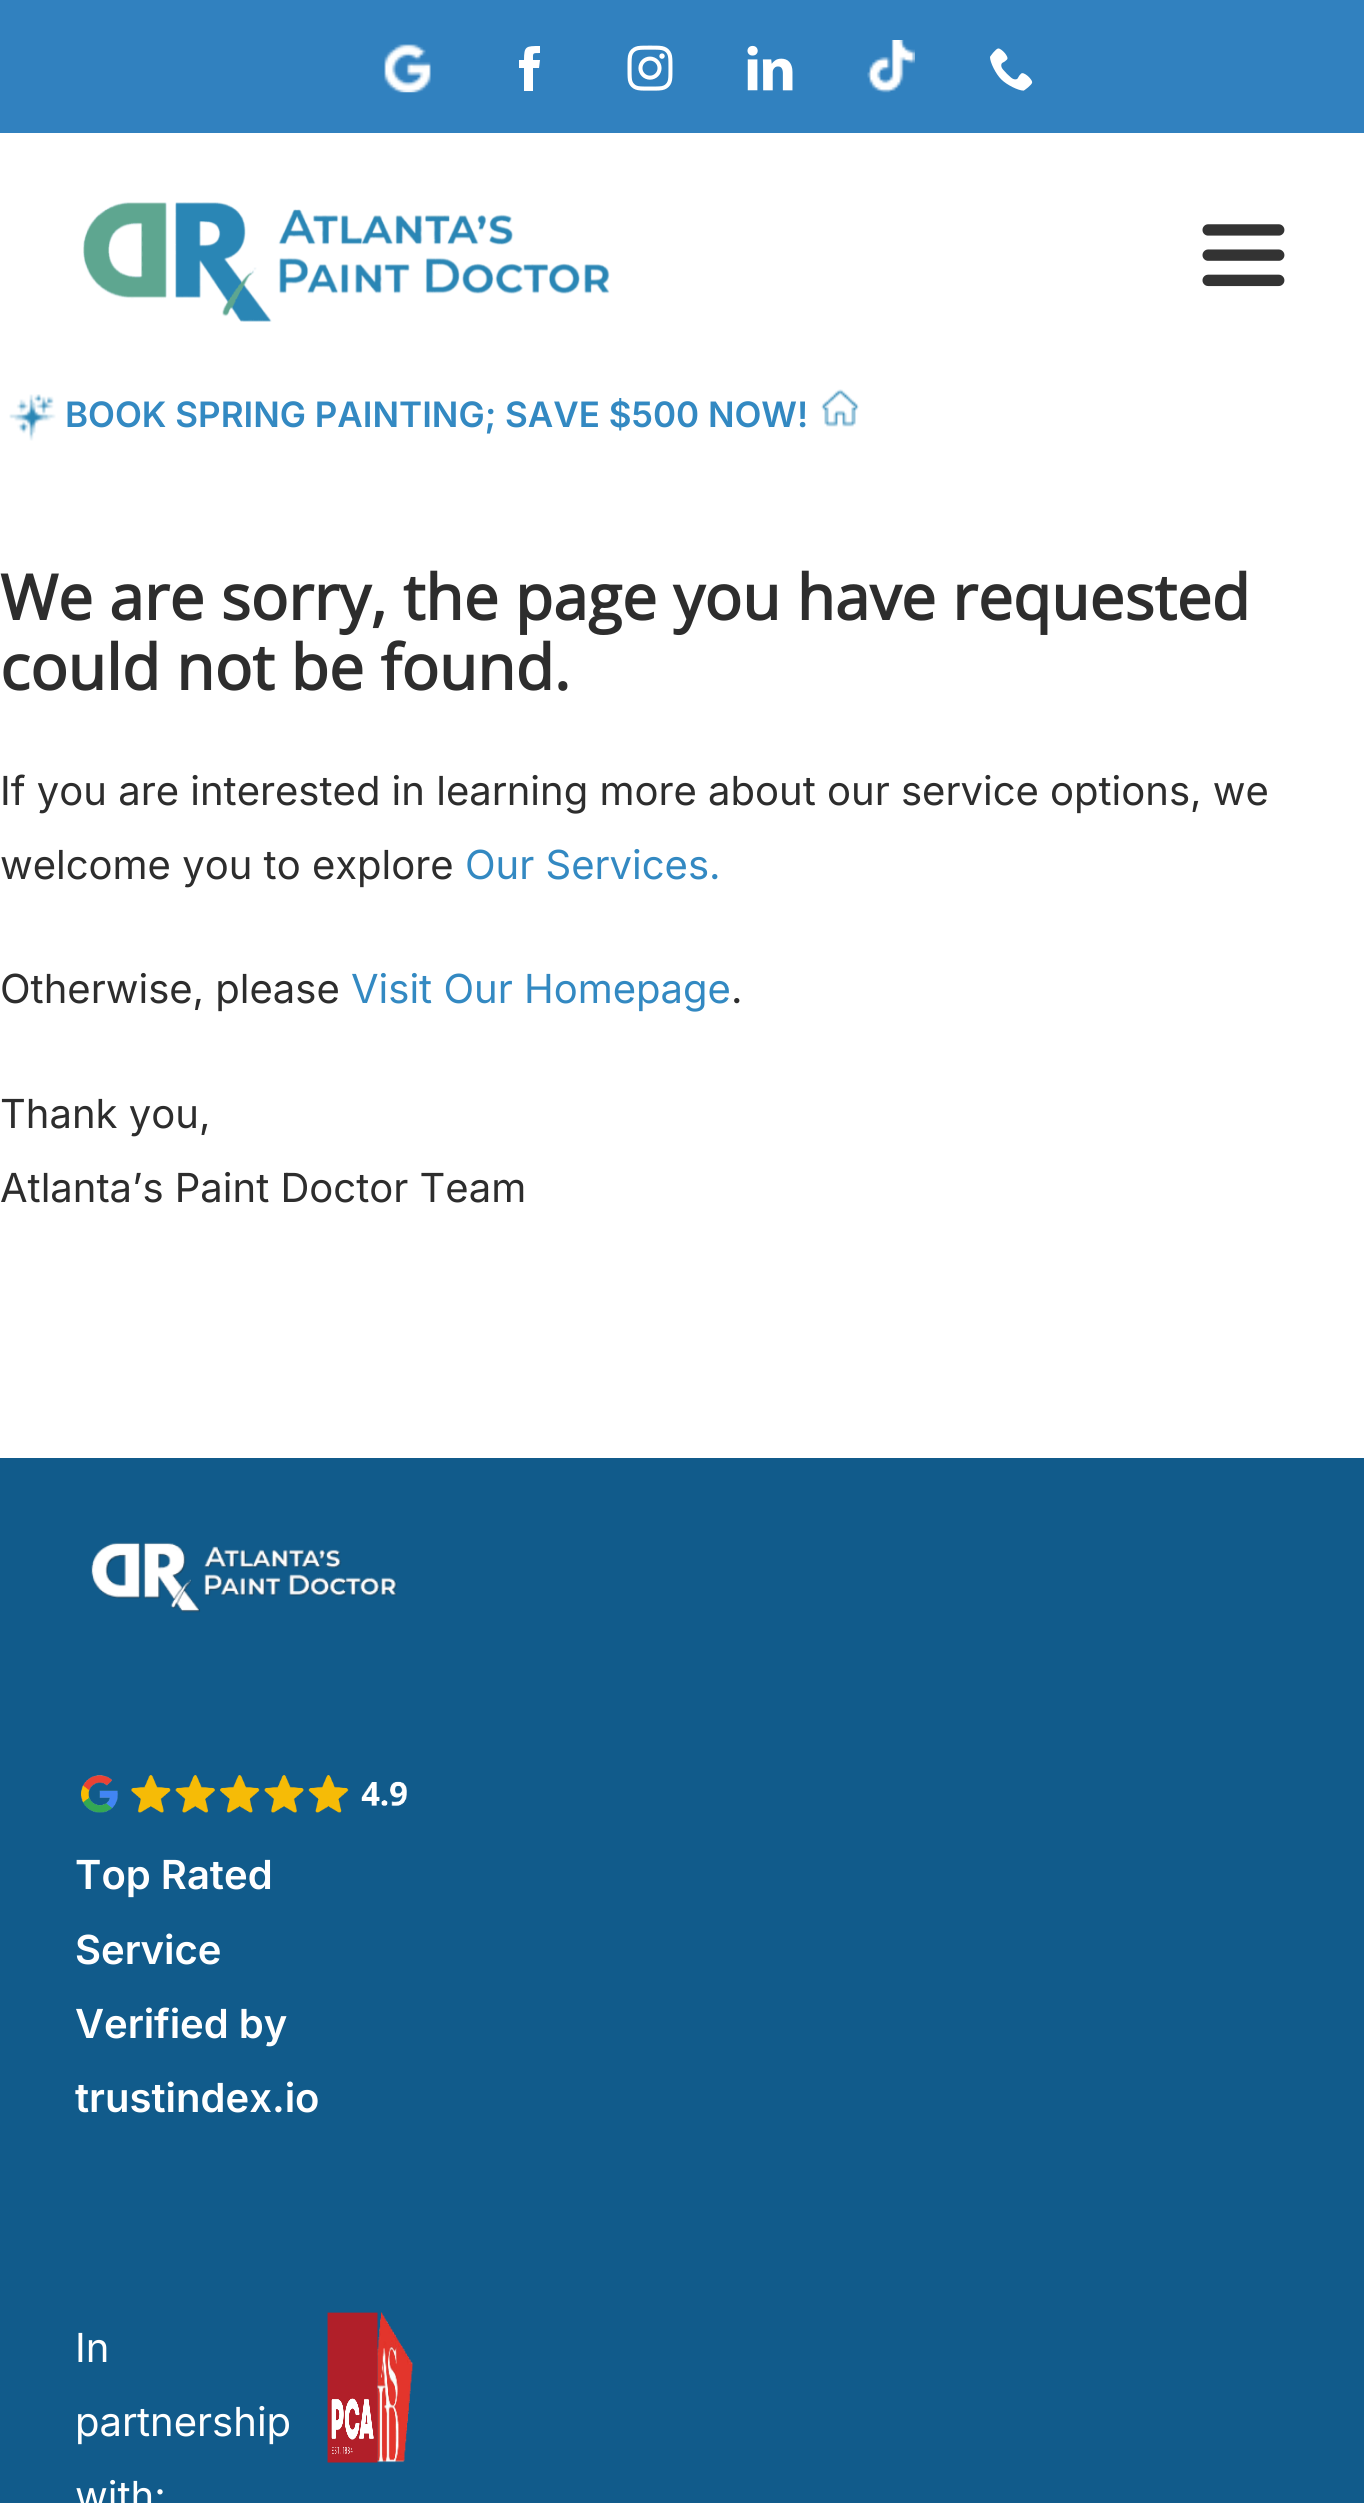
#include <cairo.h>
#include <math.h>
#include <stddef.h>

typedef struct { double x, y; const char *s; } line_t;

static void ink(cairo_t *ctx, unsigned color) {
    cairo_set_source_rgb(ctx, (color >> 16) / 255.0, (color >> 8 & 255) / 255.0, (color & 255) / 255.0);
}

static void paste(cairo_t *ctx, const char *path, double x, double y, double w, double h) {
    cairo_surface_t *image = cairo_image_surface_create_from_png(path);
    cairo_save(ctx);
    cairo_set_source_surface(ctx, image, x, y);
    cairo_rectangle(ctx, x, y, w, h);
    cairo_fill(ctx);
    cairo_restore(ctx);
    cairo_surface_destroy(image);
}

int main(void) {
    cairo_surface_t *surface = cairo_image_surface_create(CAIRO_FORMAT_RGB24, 1364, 2503);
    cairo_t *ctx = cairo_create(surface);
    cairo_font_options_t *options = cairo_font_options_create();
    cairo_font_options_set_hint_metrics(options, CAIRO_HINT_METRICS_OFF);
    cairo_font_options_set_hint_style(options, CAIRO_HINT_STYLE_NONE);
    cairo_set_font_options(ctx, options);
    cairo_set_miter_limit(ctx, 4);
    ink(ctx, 0xFFFFFF);
    cairo_paint(ctx);
    ink(ctx, 0x3181BF);
    cairo_rectangle(ctx, 0, 0, 1364, 133);
    cairo_fill(ctx);
    paste(ctx, "media/1.png", 384, 44, 47, 49);
    ink(ctx, 0xFFFFFF);
    cairo_new_path(ctx);
    cairo_move_to(ctx, 533, 91);
    cairo_line_to(ctx, 524, 91);
    cairo_line_to(ctx, 524, 68);
    cairo_line_to(ctx, 519, 68);
    cairo_line_to(ctx, 519, 60);
    cairo_line_to(ctx, 524, 60);
    cairo_curve_to(ctx, 524, 46, 526, 46, 540, 46);
    cairo_line_to(ctx, 540, 53);
    cairo_curve_to(ctx, 532, 53, 533, 53, 533, 60);
    cairo_line_to(ctx, 540, 60);
    cairo_line_to(ctx, 539, 68);
    cairo_line_to(ctx, 533, 68);
    cairo_close_path(ctx);
    cairo_fill(ctx);
    paste(ctx, "media/2.png", 627, 45, 46, 46);
    paste(ctx, "media/3.png", 747, 45, 46, 46);
    paste(ctx, "media/4.png", 867, 40, 48, 53);
    paste(ctx, "media/5.png", 990, 48, 43, 43);
    paste(ctx, "media/6.png", 83, 202, 527, 120);
    paste(ctx, "media/7.png", 1202, 224, 83, 63);
    paste(ctx, "media/8.png", 9, 394, 47, 47);
    cairo_select_font_face(ctx, "Inter SemiBold", CAIRO_FONT_SLANT_NORMAL, CAIRO_FONT_WEIGHT_NORMAL);
    cairo_set_font_size(ctx, 35);
    ink(ctx, 0x3389C2);
    cairo_move_to(ctx, 65, 427);
    cairo_show_text(ctx, "BOOK SPRING PAINTING; SAVE $500 NOW!");
    paste(ctx, "media/9.png", 821, 389, 38, 38);
    cairo_select_font_face(ctx, "Open Sans", CAIRO_FONT_SLANT_NORMAL, CAIRO_FONT_WEIGHT_BOLD);
    cairo_set_font_size(ctx, 62.5);
    ink(ctx, 0x2D2D2D);
    cairo_move_to(ctx, 0, 620);
    cairo_show_text(ctx, "We are sorry, the page you have requested");
    cairo_move_to(ctx, 0, 690);
    cairo_show_text(ctx, "could not be found.");
    cairo_select_font_face(ctx, "Inter", CAIRO_FONT_SLANT_NORMAL, CAIRO_FONT_WEIGHT_NORMAL);
    cairo_set_font_size(ctx, 40);
    cairo_move_to(ctx, 0, 805);
    cairo_show_text(ctx, "If you are interested in learning more about our service options, we");
    cairo_move_to(ctx, 0, 879);
    cairo_show_text(ctx, "welcome you to explore");
    ink(ctx, 0x3389C2);
    cairo_move_to(ctx, 465, 879);
    cairo_show_text(ctx, "Our Services.");
    ink(ctx, 0x2D2D2D);
    cairo_move_to(ctx, 0, 1003);
    cairo_show_text(ctx, "Otherwise, please");
    ink(ctx, 0x3389C2);
    cairo_move_to(ctx, 351, 1003);
    cairo_show_text(ctx, "Visit Our Homepage");
    ink(ctx, 0x2D2D2D);
    {
        static const line_t items[] = {
            {731, 1003, "."},
            {0, 1128, "Thank you,"},
            {0, 1202, "Atlanta’s Paint Doctor Team"},
        };
        for (size_t i = 0; i < sizeof items / sizeof *items; i++) {
            cairo_move_to(ctx, items[i].x, items[i].y);
            cairo_show_text(ctx, items[i].s);
        }
    }
    ink(ctx, 0x115B8B);
    cairo_rectangle(ctx, 0, 1458, 1364, 1045);
    cairo_fill(ctx);
    paste(ctx, "media/10.png", 91, 1542, 306, 71);
    paste(ctx, "media/11.png", 81, 1775, 326, 38);
    cairo_select_font_face(ctx, "Inter SemiBold", CAIRO_FONT_SLANT_NORMAL, CAIRO_FONT_WEIGHT_NORMAL);
    ink(ctx, 0xFFFFFF);
    {
        static const line_t items[] = {
            {75, 1889, "Top Rated"},
            {75, 1964, "Service"},
            {75, 2038, "Verified by"},
            {75, 2112, "trustindex.io"},
        };
        for (size_t i = 0; i < sizeof items / sizeof *items; i++) {
            cairo_move_to(ctx, items[i].x, items[i].y);
            cairo_show_text(ctx, items[i].s);
        }
    }
    cairo_select_font_face(ctx, "Inter", CAIRO_FONT_SLANT_NORMAL, CAIRO_FONT_WEIGHT_NORMAL);
    {
        static const line_t items[] = {
            {75, 2362, "In"},
            {75, 2436, "partnership"},
            {75, 2510, "with:"},
        };
        for (size_t i = 0; i < sizeof items / sizeof *items; i++) {
            cairo_move_to(ctx, items[i].x, items[i].y);
            cairo_show_text(ctx, items[i].s);
        }
    }
    paste(ctx, "media/12.png", 327, 2312, 51, 151);
    paste(ctx, "media/13.png", 377, 2312, 37, 151);
    cairo_surface_write_to_png(surface, "image.png");
    cairo_font_options_destroy(options);
    cairo_destroy(ctx);
    cairo_surface_destroy(surface);
    return 0;
}
